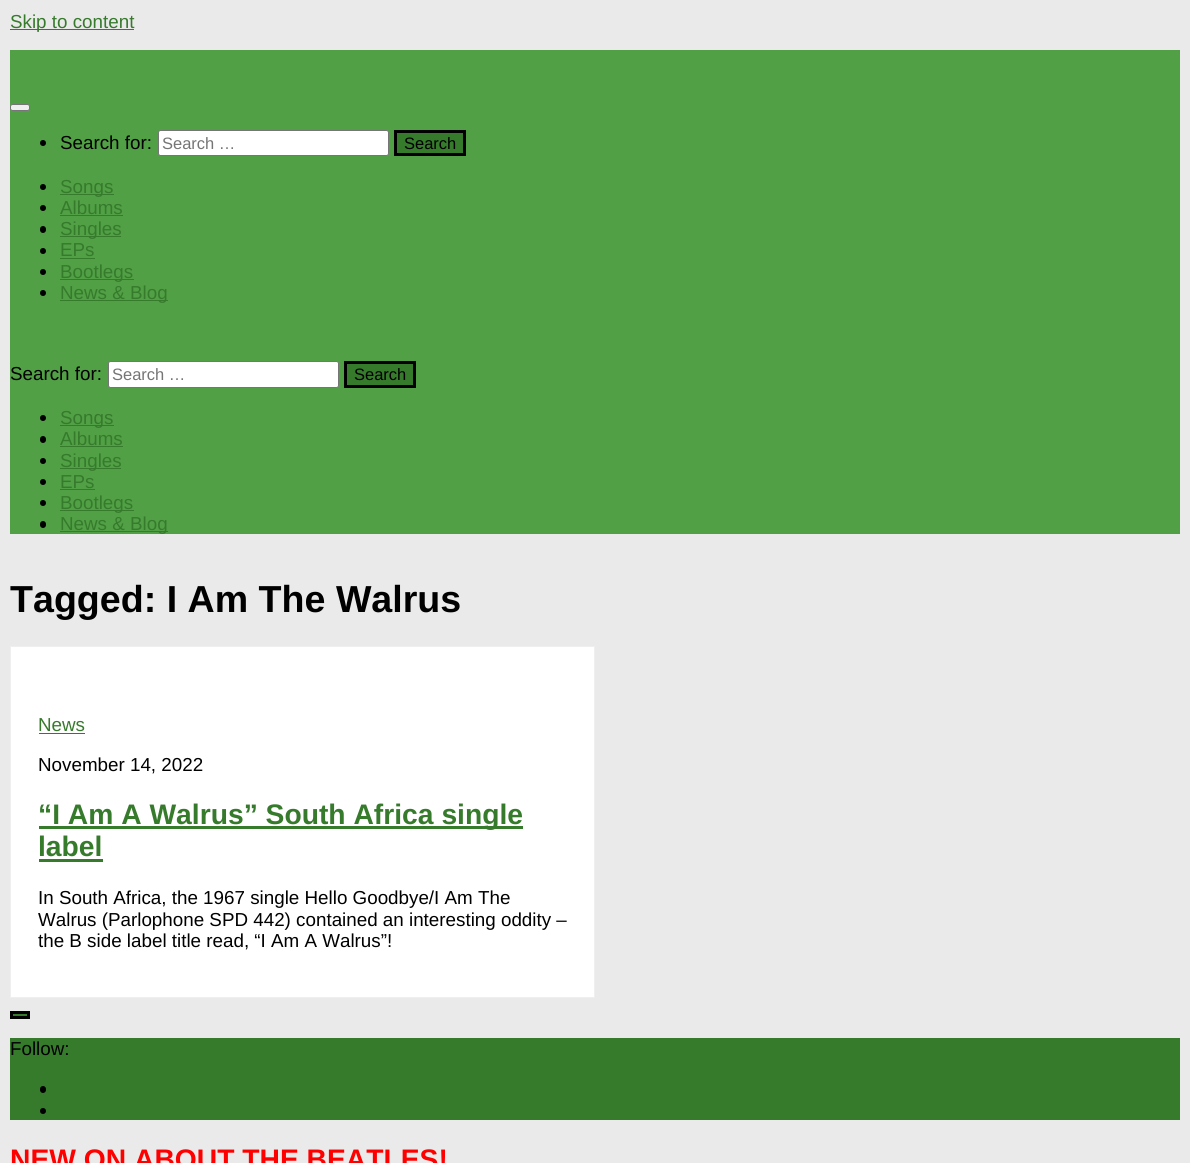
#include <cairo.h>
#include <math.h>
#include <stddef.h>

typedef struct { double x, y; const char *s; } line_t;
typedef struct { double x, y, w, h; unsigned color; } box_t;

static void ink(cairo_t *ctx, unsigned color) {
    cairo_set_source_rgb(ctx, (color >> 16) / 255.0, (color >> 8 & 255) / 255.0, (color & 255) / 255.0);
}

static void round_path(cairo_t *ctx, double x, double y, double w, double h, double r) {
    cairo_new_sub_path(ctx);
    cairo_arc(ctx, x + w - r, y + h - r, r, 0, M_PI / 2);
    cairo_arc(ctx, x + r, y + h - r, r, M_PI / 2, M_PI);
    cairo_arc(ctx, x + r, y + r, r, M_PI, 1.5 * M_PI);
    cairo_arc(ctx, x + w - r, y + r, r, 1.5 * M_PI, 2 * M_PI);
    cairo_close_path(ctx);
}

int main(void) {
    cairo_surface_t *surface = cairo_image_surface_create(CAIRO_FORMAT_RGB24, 1190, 1163);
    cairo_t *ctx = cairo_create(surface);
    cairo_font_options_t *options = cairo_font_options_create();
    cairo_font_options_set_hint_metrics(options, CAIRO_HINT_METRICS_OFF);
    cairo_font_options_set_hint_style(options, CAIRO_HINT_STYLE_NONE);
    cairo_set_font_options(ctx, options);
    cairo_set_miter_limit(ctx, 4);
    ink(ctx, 0xEAEAEA);
    cairo_paint(ctx);
    ink(ctx, 0x367A2C);
    cairo_rectangle(ctx, 10, 29, 124, 1);
    cairo_fill(ctx);
    cairo_select_font_face(ctx, "Liberation Sans", CAIRO_FONT_SLANT_NORMAL, CAIRO_FONT_WEIGHT_NORMAL);
    cairo_set_font_size(ctx, 18.8);
    cairo_move_to(ctx, 10, 28);
    cairo_show_text(ctx, "Skip to content");
    ink(ctx, 0x51A045);
    cairo_rectangle(ctx, 10, 50, 1170, 484);
    cairo_fill(ctx);
    ink(ctx, 0xEFEFEF);
    round_path(ctx, 10.5, 104.5, 19, 6, 2);
    cairo_fill_preserve(ctx);
    ink(ctx, 0x767676);
    cairo_set_line_width(ctx, 1);
    cairo_stroke(ctx);
    ink(ctx, 0x000000);
    cairo_arc(ctx, 43, 143, 3, 0, 2 * M_PI);
    cairo_fill(ctx);
    cairo_move_to(ctx, 60, 149);
    cairo_show_text(ctx, "Search for:");
    ink(ctx, 0xFFFFFF);
    round_path(ctx, 158.5, 130.5, 230, 25, 2);
    cairo_fill_preserve(ctx);
    ink(ctx, 0x767676);
    cairo_stroke(ctx);
    cairo_set_font_size(ctx, 16.5);
    ink(ctx, 0x757575);
    cairo_move_to(ctx, 162, 149);
    cairo_show_text(ctx, "Search …");
    ink(ctx, 0x367A2C);
    cairo_rectangle(ctx, 395.5, 131.5, 69, 23);
    cairo_fill_preserve(ctx);
    ink(ctx, 0x000000);
    cairo_set_line_width(ctx, 3);
    cairo_stroke(ctx);
    cairo_move_to(ctx, 404, 149);
    cairo_show_text(ctx, "Search");
    cairo_new_path(ctx);
    cairo_arc(ctx, 43, 187, 3, 0, 2 * M_PI);
    cairo_fill(ctx);
    ink(ctx, 0x367A2C);
    cairo_rectangle(ctx, 60, 194, 54, 1);
    cairo_fill(ctx);
    cairo_set_font_size(ctx, 18.8);
    cairo_move_to(ctx, 60, 193);
    cairo_show_text(ctx, "Songs");
    ink(ctx, 0x000000);
    cairo_new_path(ctx);
    cairo_arc(ctx, 43, 208, 3, 0, 2 * M_PI);
    cairo_fill(ctx);
    ink(ctx, 0x367A2C);
    cairo_move_to(ctx, 60, 214);
    cairo_show_text(ctx, "Albums");
    cairo_rectangle(ctx, 60, 215, 63, 1);
    cairo_fill(ctx);
    ink(ctx, 0x000000);
    round_path(ctx, 40, 226, 6, 7, 3);
    cairo_fill(ctx);
    ink(ctx, 0x367A2C);
    cairo_rectangle(ctx, 60, 236, 61, 1);
    cairo_fill(ctx);
    cairo_move_to(ctx, 60, 235);
    cairo_show_text(ctx, "Singles");
    ink(ctx, 0x000000);
    cairo_new_path(ctx);
    cairo_arc(ctx, 43, 251, 3, 0, 2 * M_PI);
    cairo_fill(ctx);
    ink(ctx, 0x367A2C);
    cairo_move_to(ctx, 60, 256);
    cairo_show_text(ctx, "EPs");
    cairo_rectangle(ctx, 60, 258, 35, 1);
    cairo_fill(ctx);
    ink(ctx, 0x000000);
    cairo_arc(ctx, 43, 272, 3, 0, 2 * M_PI);
    cairo_fill(ctx);
    ink(ctx, 0x367A2C);
    cairo_rectangle(ctx, 60, 279, 74, 1);
    cairo_fill(ctx);
    cairo_move_to(ctx, 60, 278);
    cairo_show_text(ctx, "Bootlegs");
    ink(ctx, 0x000000);
    cairo_new_path(ctx);
    cairo_arc(ctx, 43, 293, 3, 0, 2 * M_PI);
    cairo_fill(ctx);
    ink(ctx, 0x367A2C);
    cairo_rectangle(ctx, 60, 300, 108, 1);
    cairo_fill(ctx);
    cairo_move_to(ctx, 60, 299);
    cairo_show_text(ctx, "News & Blog");
    ink(ctx, 0x000000);
    cairo_move_to(ctx, 10, 380);
    cairo_show_text(ctx, "Search for:");
    ink(ctx, 0xFFFFFF);
    round_path(ctx, 108.5, 361.5, 230, 26, 2);
    cairo_fill_preserve(ctx);
    ink(ctx, 0x767676);
    cairo_set_line_width(ctx, 1);
    cairo_stroke(ctx);
    cairo_set_font_size(ctx, 16.5);
    ink(ctx, 0x757575);
    cairo_move_to(ctx, 112, 380);
    cairo_show_text(ctx, "Search …");
    ink(ctx, 0x367A2C);
    cairo_rectangle(ctx, 345.5, 362.5, 69, 24);
    cairo_fill_preserve(ctx);
    ink(ctx, 0x000000);
    cairo_set_line_width(ctx, 3);
    cairo_stroke(ctx);
    cairo_move_to(ctx, 354, 380);
    cairo_show_text(ctx, "Search");
    cairo_new_path(ctx);
    cairo_arc(ctx, 43, 418, 3, 0, 2 * M_PI);
    cairo_fill(ctx);
    ink(ctx, 0x367A2C);
    cairo_rectangle(ctx, 60, 425, 54, 1);
    cairo_fill(ctx);
    cairo_set_font_size(ctx, 18.8);
    cairo_move_to(ctx, 60, 424);
    cairo_show_text(ctx, "Songs");
    ink(ctx, 0x000000);
    round_path(ctx, 40, 436, 6, 7, 3);
    cairo_fill(ctx);
    ink(ctx, 0x367A2C);
    cairo_move_to(ctx, 60, 445);
    cairo_show_text(ctx, "Albums");
    cairo_rectangle(ctx, 60, 446, 63, 1);
    cairo_fill(ctx);
    ink(ctx, 0x000000);
    cairo_arc(ctx, 43, 461, 3, 0, 2 * M_PI);
    cairo_fill(ctx);
    ink(ctx, 0x367A2C);
    cairo_rectangle(ctx, 60, 468, 61, 1);
    cairo_fill(ctx);
    cairo_move_to(ctx, 60, 467);
    cairo_show_text(ctx, "Singles");
    ink(ctx, 0x000000);
    cairo_new_path(ctx);
    cairo_arc(ctx, 43, 482, 3, 0, 2 * M_PI);
    cairo_fill(ctx);
    ink(ctx, 0x367A2C);
    cairo_move_to(ctx, 60, 488);
    cairo_show_text(ctx, "EPs");
    cairo_rectangle(ctx, 60, 489, 35, 1);
    cairo_fill(ctx);
    ink(ctx, 0x000000);
    cairo_arc(ctx, 43, 503, 3, 0, 2 * M_PI);
    cairo_fill(ctx);
    ink(ctx, 0x367A2C);
    cairo_rectangle(ctx, 60, 510, 74, 1);
    cairo_fill(ctx);
    cairo_move_to(ctx, 60, 509);
    cairo_show_text(ctx, "Bootlegs");
    ink(ctx, 0x000000);
    round_path(ctx, 40, 521, 6, 7, 3);
    cairo_fill(ctx);
    ink(ctx, 0x367A2C);
    cairo_rectangle(ctx, 60, 531, 108, 1);
    cairo_fill(ctx);
    cairo_move_to(ctx, 60, 530);
    cairo_show_text(ctx, "News & Blog");
    cairo_select_font_face(ctx, "Liberation Sans", CAIRO_FONT_SLANT_NORMAL, CAIRO_FONT_WEIGHT_BOLD);
    cairo_set_font_size(ctx, 37.6);
    ink(ctx, 0x000000);
    cairo_move_to(ctx, 10, 612);
    cairo_show_text(ctx, "Tagged: I Am The Walrus");
    {
        static const box_t items[] = {
            {11, 647, 583, 350, 0xFFFFFF},
            {39, 733, 46, 1, 0x367A2C},
            {39, 826, 484, 3, 0x367A2C},
            {39, 859, 64, 3, 0x367A2C},
        };
        for (size_t i = 0; i < sizeof items / sizeof *items; i++) {
            ink(ctx, items[i].color);
            cairo_rectangle(ctx, items[i].x, items[i].y, items[i].w, items[i].h);
            cairo_fill(ctx);
        }
    }
    cairo_rectangle(ctx, 10.5, 646.5, 584, 351);
    ink(ctx, 0xEFEFEF);
    cairo_set_line_width(ctx, 1);
    cairo_stroke(ctx);
    cairo_select_font_face(ctx, "Liberation Sans", CAIRO_FONT_SLANT_NORMAL, CAIRO_FONT_WEIGHT_NORMAL);
    cairo_set_font_size(ctx, 18.8);
    ink(ctx, 0x367A2C);
    cairo_move_to(ctx, 38, 731);
    cairo_show_text(ctx, "News");
    ink(ctx, 0x000000);
    cairo_move_to(ctx, 38, 771);
    cairo_show_text(ctx, "November 14, 2022");
    cairo_select_font_face(ctx, "Liberation Sans", CAIRO_FONT_SLANT_NORMAL, CAIRO_FONT_WEIGHT_BOLD);
    cairo_set_font_size(ctx, 28.25);
    ink(ctx, 0x367A2C);
    cairo_move_to(ctx, 38, 824);
    cairo_show_text(ctx, "“I Am A Walrus” South Africa single");
    cairo_move_to(ctx, 38, 856);
    cairo_show_text(ctx, "label");
    cairo_select_font_face(ctx, "Liberation Sans", CAIRO_FONT_SLANT_NORMAL, CAIRO_FONT_WEIGHT_NORMAL);
    cairo_set_font_size(ctx, 18.8);
    ink(ctx, 0x000000);
    {
        static const line_t items[] = {
            {38, 904, "In South Africa, the 1967 single Hello Goodbye/I Am The"},
            {38, 926, "Walrus (Parlophone SPD 442) contained an interesting oddity –"},
            {38, 947, "the B side label title read, “I Am A Walrus”!"},
        };
        for (size_t i = 0; i < sizeof items / sizeof *items; i++) {
            cairo_move_to(ctx, items[i].x, items[i].y);
            cairo_show_text(ctx, items[i].s);
        }
    }
    ink(ctx, 0x367A2C);
    cairo_rectangle(ctx, 11.5, 1012.5, 17, 5);
    cairo_fill_preserve(ctx);
    ink(ctx, 0x000000);
    cairo_set_line_width(ctx, 3);
    cairo_stroke(ctx);
    ink(ctx, 0x367A2C);
    cairo_rectangle(ctx, 10, 1038, 1170, 82);
    cairo_fill(ctx);
    ink(ctx, 0x000000);
    cairo_move_to(ctx, 10, 1055);
    cairo_show_text(ctx, "Follow:");
    round_path(ctx, 40, 1086, 6, 7, 3);
    cairo_fill(ctx);
    cairo_arc(ctx, 43, 1111, 3, 0, 2 * M_PI);
    cairo_fill(ctx);
    cairo_select_font_face(ctx, "Liberation Sans", CAIRO_FONT_SLANT_NORMAL, CAIRO_FONT_WEIGHT_BOLD);
    cairo_set_font_size(ctx, 28.25);
    ink(ctx, 0xFF0000);
    cairo_move_to(ctx, 10, 1169);
    cairo_show_text(ctx, "NEW ON ABOUT THE BEATLES!");
    cairo_surface_write_to_png(surface, "image.png");
    cairo_font_options_destroy(options);
    cairo_destroy(ctx);
    cairo_surface_destroy(surface);
    return 0;
}
